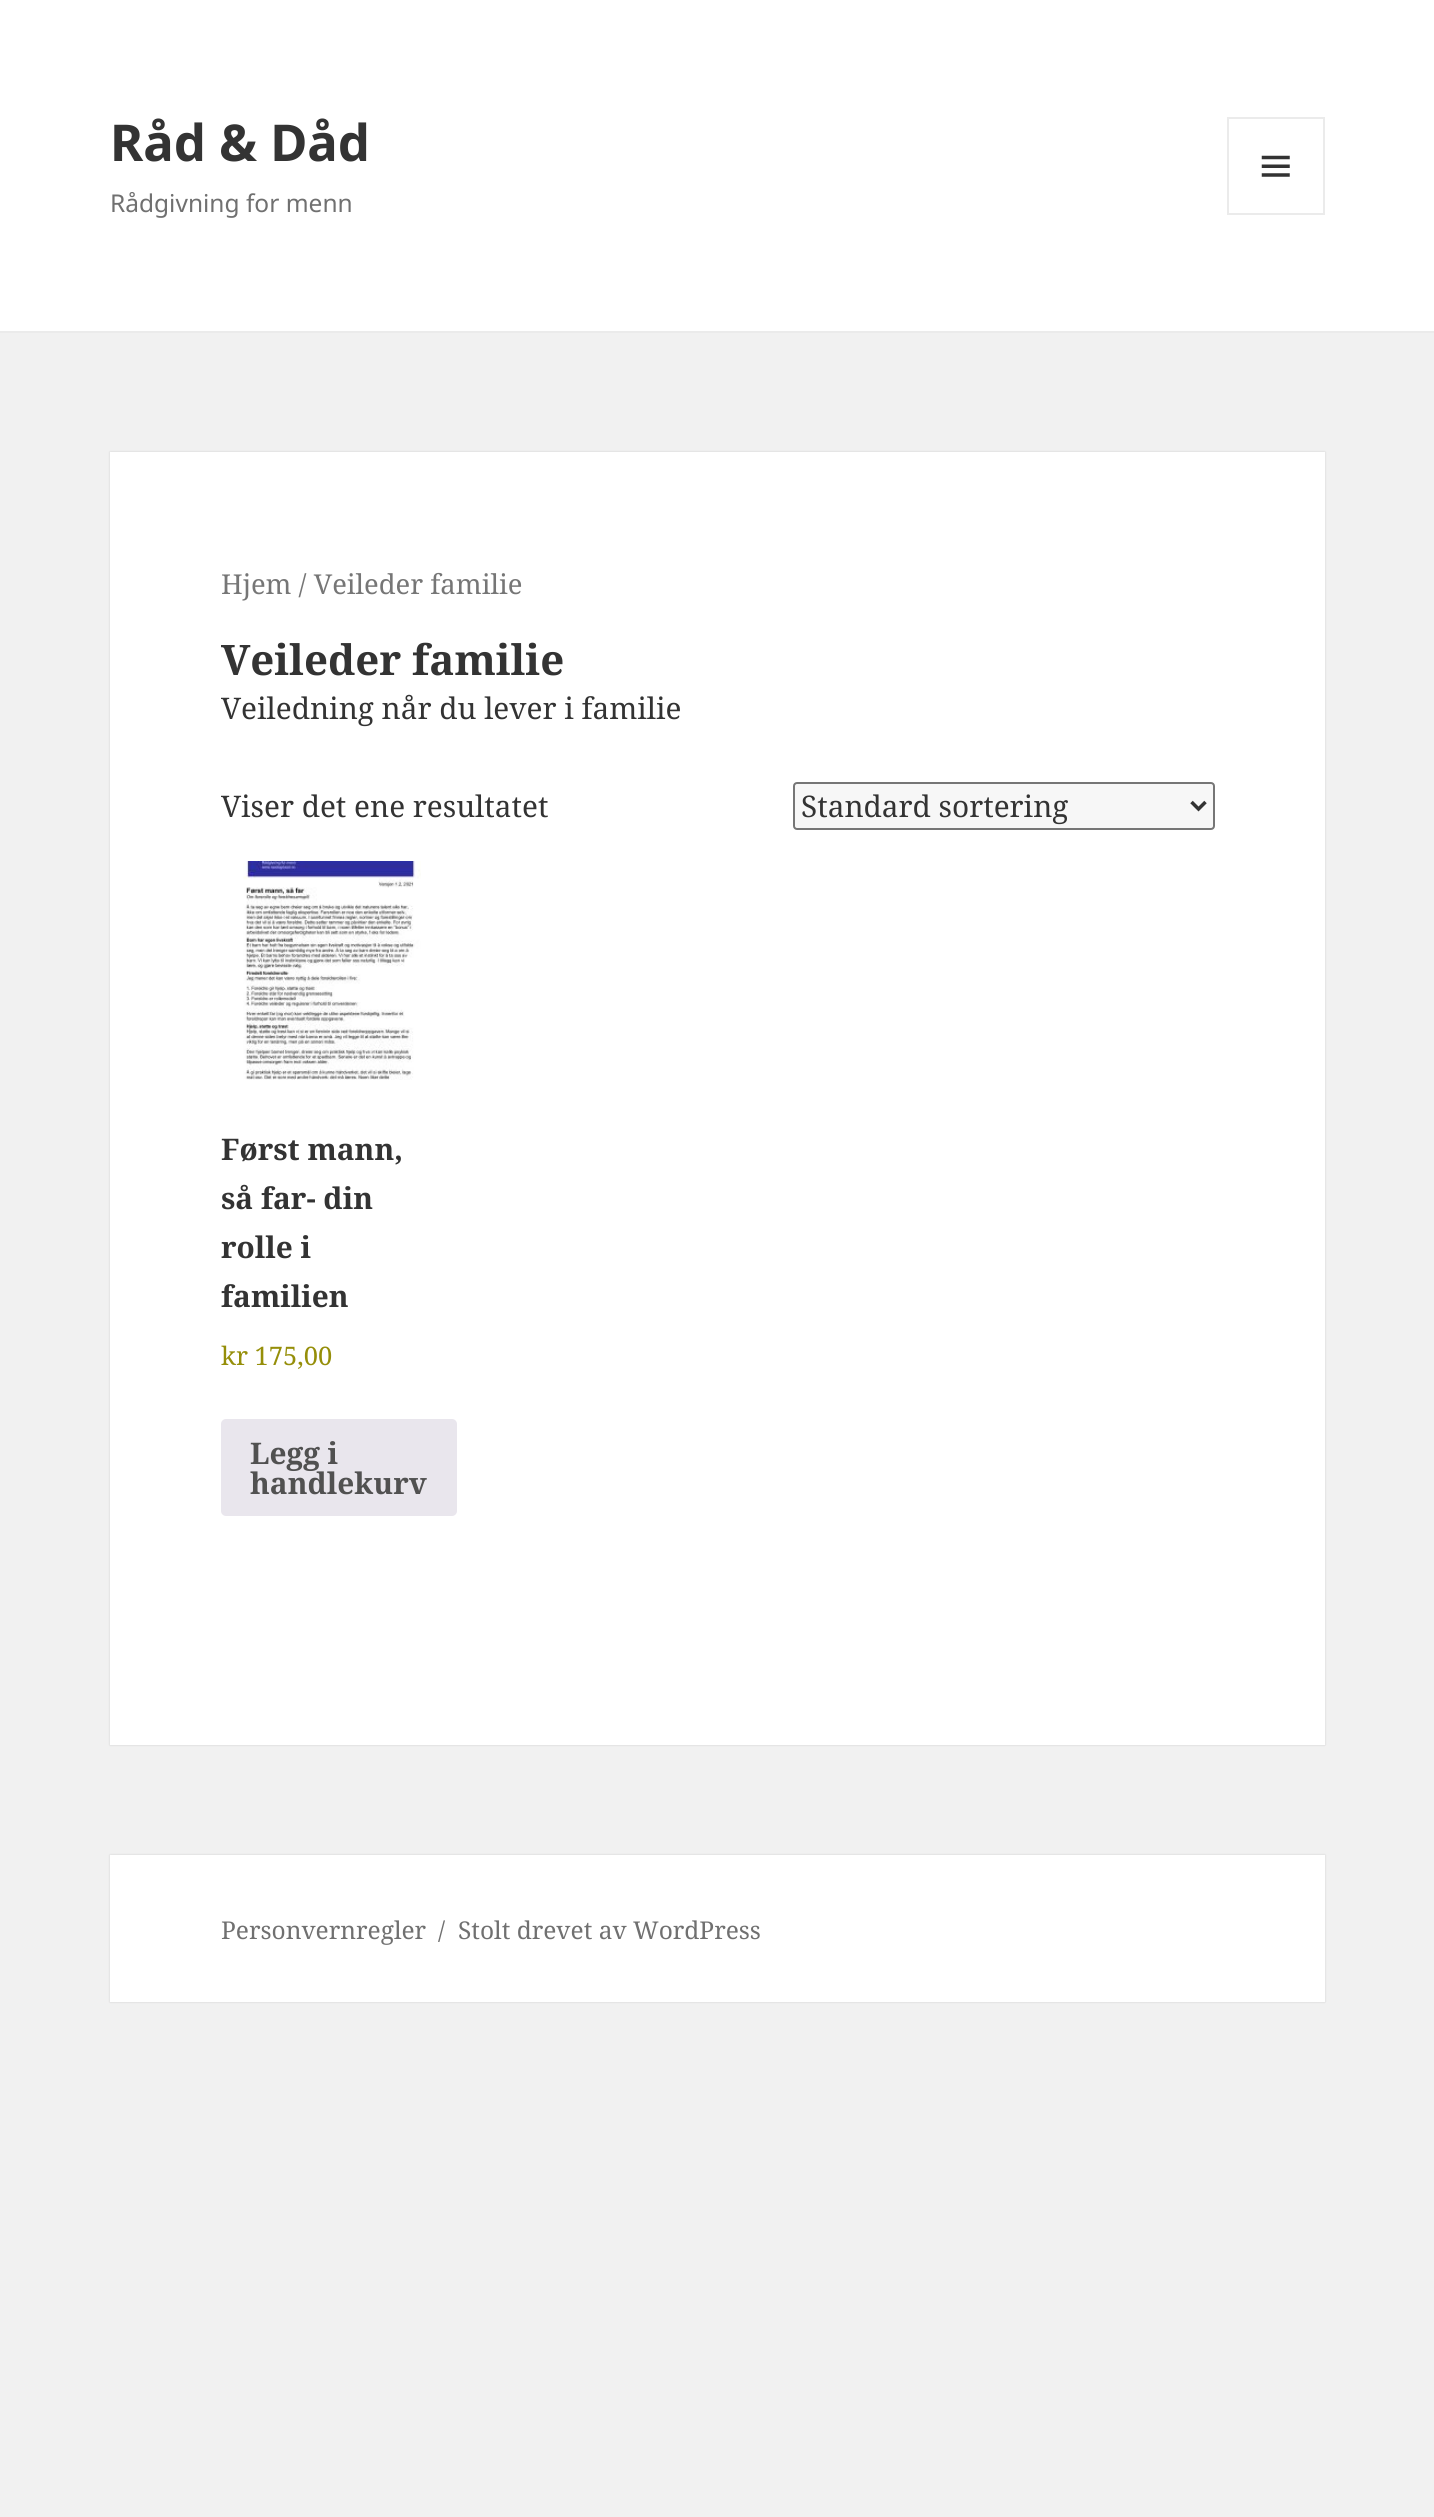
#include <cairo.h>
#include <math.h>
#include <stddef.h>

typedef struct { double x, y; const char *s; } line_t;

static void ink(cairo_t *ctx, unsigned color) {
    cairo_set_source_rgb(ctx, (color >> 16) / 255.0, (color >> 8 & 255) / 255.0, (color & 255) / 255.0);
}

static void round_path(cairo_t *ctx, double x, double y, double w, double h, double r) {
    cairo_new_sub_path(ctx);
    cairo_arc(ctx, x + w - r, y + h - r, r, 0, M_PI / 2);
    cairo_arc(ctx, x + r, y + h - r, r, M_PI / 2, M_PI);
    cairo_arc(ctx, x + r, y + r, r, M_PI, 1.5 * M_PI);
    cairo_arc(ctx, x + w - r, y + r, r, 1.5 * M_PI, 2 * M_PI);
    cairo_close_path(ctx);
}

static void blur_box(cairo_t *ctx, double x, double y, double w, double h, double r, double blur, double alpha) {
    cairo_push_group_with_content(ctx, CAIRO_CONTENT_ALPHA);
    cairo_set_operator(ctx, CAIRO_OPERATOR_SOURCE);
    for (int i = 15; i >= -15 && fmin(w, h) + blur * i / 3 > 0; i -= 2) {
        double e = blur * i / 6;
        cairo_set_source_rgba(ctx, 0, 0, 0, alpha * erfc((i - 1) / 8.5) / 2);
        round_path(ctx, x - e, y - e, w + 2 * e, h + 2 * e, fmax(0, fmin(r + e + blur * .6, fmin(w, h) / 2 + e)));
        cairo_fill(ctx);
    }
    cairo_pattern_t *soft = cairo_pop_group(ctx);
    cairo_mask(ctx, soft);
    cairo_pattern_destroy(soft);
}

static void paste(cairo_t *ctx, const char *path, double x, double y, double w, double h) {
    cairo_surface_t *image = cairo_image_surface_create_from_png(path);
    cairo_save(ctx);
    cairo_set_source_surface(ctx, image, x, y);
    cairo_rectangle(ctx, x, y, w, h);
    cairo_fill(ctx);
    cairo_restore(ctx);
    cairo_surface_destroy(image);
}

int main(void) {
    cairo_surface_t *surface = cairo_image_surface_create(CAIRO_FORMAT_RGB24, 1434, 2517);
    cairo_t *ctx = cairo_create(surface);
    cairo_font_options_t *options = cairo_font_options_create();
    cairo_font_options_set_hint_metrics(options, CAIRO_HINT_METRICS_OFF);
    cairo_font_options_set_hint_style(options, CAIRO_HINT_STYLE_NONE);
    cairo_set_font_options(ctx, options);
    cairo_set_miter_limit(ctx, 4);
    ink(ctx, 0xF1F1F1);
    cairo_paint(ctx);
    ink(ctx, 0xFFFFFF);
    cairo_rectangle(ctx, 0, 0, 1434, 331);
    cairo_fill(ctx);
    ink(ctx, 0xEBEBEB);
    cairo_rectangle(ctx, 0, 331, 1434, 2);
    cairo_fill(ctx);
    cairo_select_font_face(ctx, "Noto Sans", CAIRO_FONT_SLANT_NORMAL, CAIRO_FONT_WEIGHT_BOLD);
    cairo_set_font_size(ctx, 50.75);
    ink(ctx, 0x333333);
    cairo_move_to(ctx, 110, 161);
    cairo_show_text(ctx, "Råd & Dåd");
    cairo_rectangle(ctx, 1228, 118, 96, 96);
    ink(ctx, 0xEBEBEB);
    cairo_stroke(ctx);
    paste(ctx, "media/1.png", 1261, 155, 29, 22);
    cairo_select_font_face(ctx, "Noto Sans", CAIRO_FONT_SLANT_NORMAL, CAIRO_FONT_WEIGHT_NORMAL);
    cairo_set_font_size(ctx, 24.5);
    ink(ctx, 0x707070);
    cairo_move_to(ctx, 110, 212);
    cairo_show_text(ctx, "Rådgivning for menn");
    ink(ctx, 0x000000);
    blur_box(ctx, 110, 452, 1215, 1293, 0, 1, 0.15);
    ink(ctx, 0xFFFFFF);
    cairo_rectangle(ctx, 110, 452, 1215, 1293);
    cairo_fill(ctx);
    cairo_select_font_face(ctx, "Noto Serif", CAIRO_FONT_SLANT_NORMAL, CAIRO_FONT_WEIGHT_NORMAL);
    cairo_set_font_size(ctx, 27.4);
    ink(ctx, 0x767676);
    cairo_move_to(ctx, 221, 594);
    cairo_show_text(ctx, "Hjem / Veileder familie");
    cairo_select_font_face(ctx, "Noto Serif", CAIRO_FONT_SLANT_NORMAL, CAIRO_FONT_WEIGHT_BOLD);
    cairo_set_font_size(ctx, 42);
    ink(ctx, 0x333333);
    cairo_move_to(ctx, 221, 675);
    cairo_show_text(ctx, "Veileder familie");
    cairo_select_font_face(ctx, "Noto Serif", CAIRO_FONT_SLANT_NORMAL, CAIRO_FONT_WEIGHT_NORMAL);
    cairo_set_font_size(ctx, 29.75);
    cairo_move_to(ctx, 221, 719);
    cairo_show_text(ctx, "Veiledning når du lever i familie");
    cairo_move_to(ctx, 221, 817);
    cairo_show_text(ctx, "Viser det ene resultatet");
    ink(ctx, 0xF7F7F7);
    round_path(ctx, 794, 783, 420, 46, 3);
    cairo_fill_preserve(ctx);
    ink(ctx, 0x767676);
    cairo_stroke(ctx);
    cairo_new_path(ctx);
    cairo_move_to(ctx, 1191.5, 802);
    cairo_line_to(ctx, 1198.5, 809);
    cairo_line_to(ctx, 1205.5, 802);
    ink(ctx, 0x333333);
    cairo_set_line_width(ctx, 3.5);
    cairo_stroke(ctx);
    cairo_move_to(ctx, 801, 817);
    cairo_show_text(ctx, "Standard sortering");
    paste(ctx, "media/2.png", 243, 861, 178, 219);
    cairo_select_font_face(ctx, "Noto Serif", CAIRO_FONT_SLANT_NORMAL, CAIRO_FONT_WEIGHT_BOLD);
    {
        static const line_t items[] = {
            {221, 1160, "Først mann,"},
            {221, 1209, "så far- din"},
            {221, 1258, "rolle i"},
            {221, 1307, "familien"},
        };
        for (size_t i = 0; i < sizeof items / sizeof *items; i++) {
            cairo_move_to(ctx, items[i].x, items[i].y);
            cairo_show_text(ctx, items[i].s);
        }
    }
    cairo_select_font_face(ctx, "Noto Serif", CAIRO_FONT_SLANT_NORMAL, CAIRO_FONT_WEIGHT_NORMAL);
    cairo_set_font_size(ctx, 25.5);
    ink(ctx, 0x958E09);
    cairo_move_to(ctx, 221, 1365);
    cairo_show_text(ctx, "kr 175,00");
    ink(ctx, 0xE9E6ED);
    round_path(ctx, 221, 1419, 236, 97, 5);
    cairo_fill(ctx);
    cairo_select_font_face(ctx, "Noto Serif", CAIRO_FONT_SLANT_NORMAL, CAIRO_FONT_WEIGHT_BOLD);
    cairo_set_font_size(ctx, 29.75);
    ink(ctx, 0x515151);
    cairo_move_to(ctx, 250, 1464);
    cairo_show_text(ctx, "Legg i");
    cairo_move_to(ctx, 250, 1494);
    cairo_show_text(ctx, "handlekurv");
    ink(ctx, 0x000000);
    blur_box(ctx, 110, 1855, 1215, 147, 0, 1, 0.15);
    ink(ctx, 0xFFFFFF);
    cairo_rectangle(ctx, 110, 1855, 1215, 147);
    cairo_fill(ctx);
    cairo_select_font_face(ctx, "Noto Serif", CAIRO_FONT_SLANT_NORMAL, CAIRO_FONT_WEIGHT_NORMAL);
    cairo_set_font_size(ctx, 24.5);
    ink(ctx, 0x707070);
    {
        static const line_t items[] = {
            {221, 1939, "Personvernregler"},
            {438, 1939, "/"},
            {458, 1939, "Stolt drevet av WordPress"},
        };
        for (size_t i = 0; i < sizeof items / sizeof *items; i++) {
            cairo_move_to(ctx, items[i].x, items[i].y);
            cairo_show_text(ctx, items[i].s);
        }
    }
    cairo_surface_write_to_png(surface, "image.png");
    cairo_font_options_destroy(options);
    cairo_destroy(ctx);
    cairo_surface_destroy(surface);
    return 0;
}
